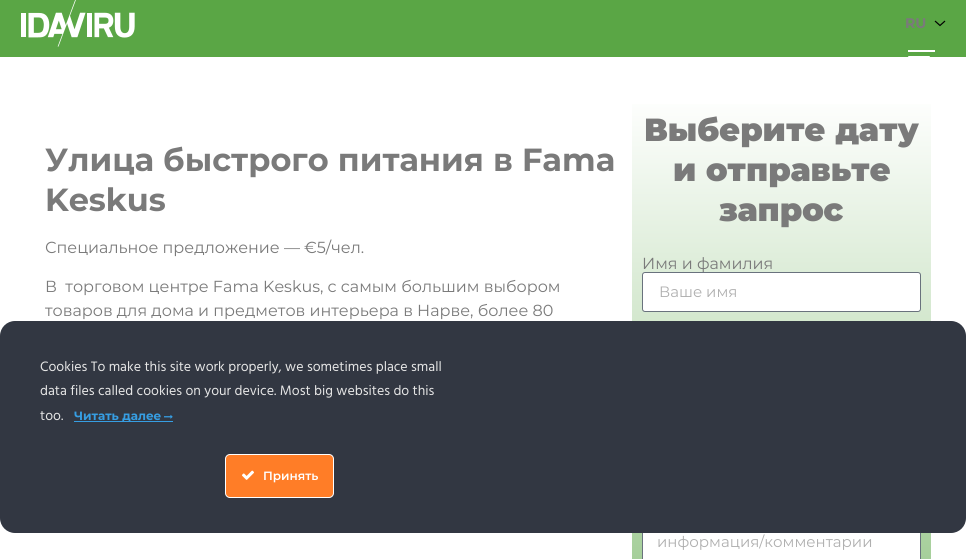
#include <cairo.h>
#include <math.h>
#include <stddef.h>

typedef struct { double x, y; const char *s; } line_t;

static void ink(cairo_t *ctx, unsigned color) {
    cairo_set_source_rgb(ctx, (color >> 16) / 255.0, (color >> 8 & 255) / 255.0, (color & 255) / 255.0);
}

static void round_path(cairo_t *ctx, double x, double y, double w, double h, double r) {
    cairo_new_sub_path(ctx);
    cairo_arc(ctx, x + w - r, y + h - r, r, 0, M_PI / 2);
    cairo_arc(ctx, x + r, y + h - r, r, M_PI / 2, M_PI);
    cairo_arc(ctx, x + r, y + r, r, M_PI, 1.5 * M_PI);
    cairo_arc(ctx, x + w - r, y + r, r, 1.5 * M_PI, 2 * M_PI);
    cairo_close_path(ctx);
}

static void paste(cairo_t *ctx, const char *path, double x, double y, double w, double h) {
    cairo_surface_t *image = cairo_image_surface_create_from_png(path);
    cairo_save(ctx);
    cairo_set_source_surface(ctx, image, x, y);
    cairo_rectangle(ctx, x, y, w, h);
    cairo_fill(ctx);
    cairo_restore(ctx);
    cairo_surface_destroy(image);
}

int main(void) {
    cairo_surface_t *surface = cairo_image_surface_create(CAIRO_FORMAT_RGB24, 966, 559);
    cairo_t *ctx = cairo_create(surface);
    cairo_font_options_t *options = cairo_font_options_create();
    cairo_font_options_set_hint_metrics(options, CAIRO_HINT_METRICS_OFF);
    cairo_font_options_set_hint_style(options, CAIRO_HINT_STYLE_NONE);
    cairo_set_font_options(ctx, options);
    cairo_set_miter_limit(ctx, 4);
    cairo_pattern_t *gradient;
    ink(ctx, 0xFFFFFF);
    cairo_paint(ctx);
    ink(ctx, 0x5AA645);
    cairo_rectangle(ctx, 0, 0, 966, 57);
    cairo_fill(ctx);
    paste(ctx, "media/1.png", 21, 0, 114, 47);
    cairo_select_font_face(ctx, "Montserrat", CAIRO_FONT_SLANT_NORMAL, CAIRO_FONT_WEIGHT_BOLD);
    cairo_set_font_size(ctx, 14);
    ink(ctx, 0x7A7A7A);
    cairo_move_to(ctx, 905, 28);
    cairo_show_text(ctx, "RU");
    cairo_new_path(ctx);
    cairo_move_to(ctx, 935, 21);
    cairo_line_to(ctx, 940, 25.5);
    cairo_line_to(ctx, 945, 21);
    ink(ctx, 0x000000);
    cairo_set_line_width(ctx, 1.2);
    cairo_stroke(ctx);
    ink(ctx, 0xFFFFFF);
    round_path(ctx, 908, 56, 22, 2, 1);
    cairo_fill(ctx);
    cairo_rectangle(ctx, 908, 50, 27, 2);
    cairo_fill(ctx);
    cairo_set_font_size(ctx, 32);
    ink(ctx, 0x7A7A7A);
    cairo_move_to(ctx, 45, 171);
    cairo_show_text(ctx, "Улица быстрого питания в Fama");
    cairo_move_to(ctx, 45, 211);
    cairo_show_text(ctx, "Keskus");
    cairo_select_font_face(ctx, "Montserrat", CAIRO_FONT_SLANT_NORMAL, CAIRO_FONT_WEIGHT_NORMAL);
    cairo_set_font_size(ctx, 16);
    {
        static const line_t items[] = {
            {45, 253, "Специальное предложение — €5/чел."},
            {45, 292, "В  торговом центре Fama Keskus, с самым большим выбором"},
            {45, 316, "товаров для дома и предметов интерьера в Нарве, более 80"},
        };
        for (size_t i = 0; i < sizeof items / sizeof *items; i++) {
            cairo_move_to(ctx, items[i].x, items[i].y);
            cairo_show_text(ctx, items[i].s);
        }
    }
    gradient = cairo_pattern_create_linear(782, 92, 782, 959);
    cairo_pattern_add_color_stop_rgba(gradient, 0, 1, 1, 1, 1);
    cairo_pattern_add_color_stop_rgba(gradient, 1, 0.353, 0.651, 0.271, 1);
    cairo_set_source(ctx, gradient);
    cairo_pattern_destroy(gradient);
    cairo_rectangle(ctx, 632, 104, 299, 455);
    cairo_fill(ctx);
    cairo_select_font_face(ctx, "Montserrat Black", CAIRO_FONT_SLANT_NORMAL, CAIRO_FONT_WEIGHT_NORMAL);
    cairo_set_font_size(ctx, 32);
    ink(ctx, 0x7A7A7A);
    {
        static const line_t items[] = {
            {644, 141, "Выберите дату"},
            {673, 181, "и отправьте"},
            {719, 221, "запрос"},
        };
        for (size_t i = 0; i < sizeof items / sizeof *items; i++) {
            cairo_move_to(ctx, items[i].x, items[i].y);
            cairo_show_text(ctx, items[i].s);
        }
    }
    cairo_select_font_face(ctx, "Montserrat", CAIRO_FONT_SLANT_NORMAL, CAIRO_FONT_WEIGHT_NORMAL);
    cairo_set_font_size(ctx, 16);
    cairo_move_to(ctx, 642, 269);
    cairo_show_text(ctx, "Имя и фамилия");
    ink(ctx, 0xFFFFFF);
    round_path(ctx, 642.5, 272.5, 278, 39, 2.5);
    cairo_fill_preserve(ctx);
    ink(ctx, 0x69727D);
    cairo_set_line_width(ctx, 1);
    cairo_stroke(ctx);
    cairo_set_font_size(ctx, 15);
    ink(ctx, 0xAFAFAF);
    cairo_move_to(ctx, 659, 297);
    cairo_show_text(ctx, "Ваше имя");
    ink(ctx, 0xFFFFFF);
    cairo_rectangle(ctx, 643, 533, 277, 26);
    cairo_fill(ctx);
    cairo_rectangle(ctx, 642.5, 504.5, 278, 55);
    ink(ctx, 0x69727D);
    cairo_stroke(ctx);
    ink(ctx, 0xAFAFAF);
    cairo_move_to(ctx, 657, 547);
    cairo_show_text(ctx, "информация/комментарии");
    ink(ctx, 0x323742);
    round_path(ctx, 0, 321, 966, 212, 15);
    cairo_fill(ctx);
    cairo_select_font_face(ctx, "Hind", CAIRO_FONT_SLANT_NORMAL, CAIRO_FONT_WEIGHT_NORMAL);
    cairo_set_font_size(ctx, 14);
    ink(ctx, 0xE5E5E5);
    {
        static const line_t items[] = {
            {40, 371, "Cookies To make this site work properly, we sometimes place small"},
            {40, 395, "data files called cookies on your device. Most big websites do this"},
            {40, 420, "too."},
        };
        for (size_t i = 0; i < sizeof items / sizeof *items; i++) {
            cairo_move_to(ctx, items[i].x, items[i].y);
            cairo_show_text(ctx, items[i].s);
        }
    }
    ink(ctx, 0x369EE3);
    cairo_rectangle(ctx, 74, 421, 99, 1);
    cairo_fill(ctx);
    cairo_select_font_face(ctx, "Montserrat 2", CAIRO_FONT_SLANT_NORMAL, CAIRO_FONT_WEIGHT_BOLD);
    cairo_set_font_size(ctx, 12);
    cairo_move_to(ctx, 74, 420);
    cairo_show_text(ctx, "Читать далее");
    paste(ctx, "media/2.png", 164, 414, 9, 5);
    ink(ctx, 0xFF7D27);
    round_path(ctx, 225.5, 454.5, 108, 43, 4.5);
    cairo_fill_preserve(ctx);
    ink(ctx, 0xFFFFFF);
    cairo_stroke(ctx);
    paste(ctx, "media/3.png", 242, 470, 12, 10);
    cairo_select_font_face(ctx, "Montserrat SemiBold", CAIRO_FONT_SLANT_NORMAL, CAIRO_FONT_WEIGHT_NORMAL);
    cairo_move_to(ctx, 263, 480);
    cairo_show_text(ctx, "Принять");
    cairo_surface_write_to_png(surface, "image.png");
    cairo_font_options_destroy(options);
    cairo_destroy(ctx);
    cairo_surface_destroy(surface);
    return 0;
}
